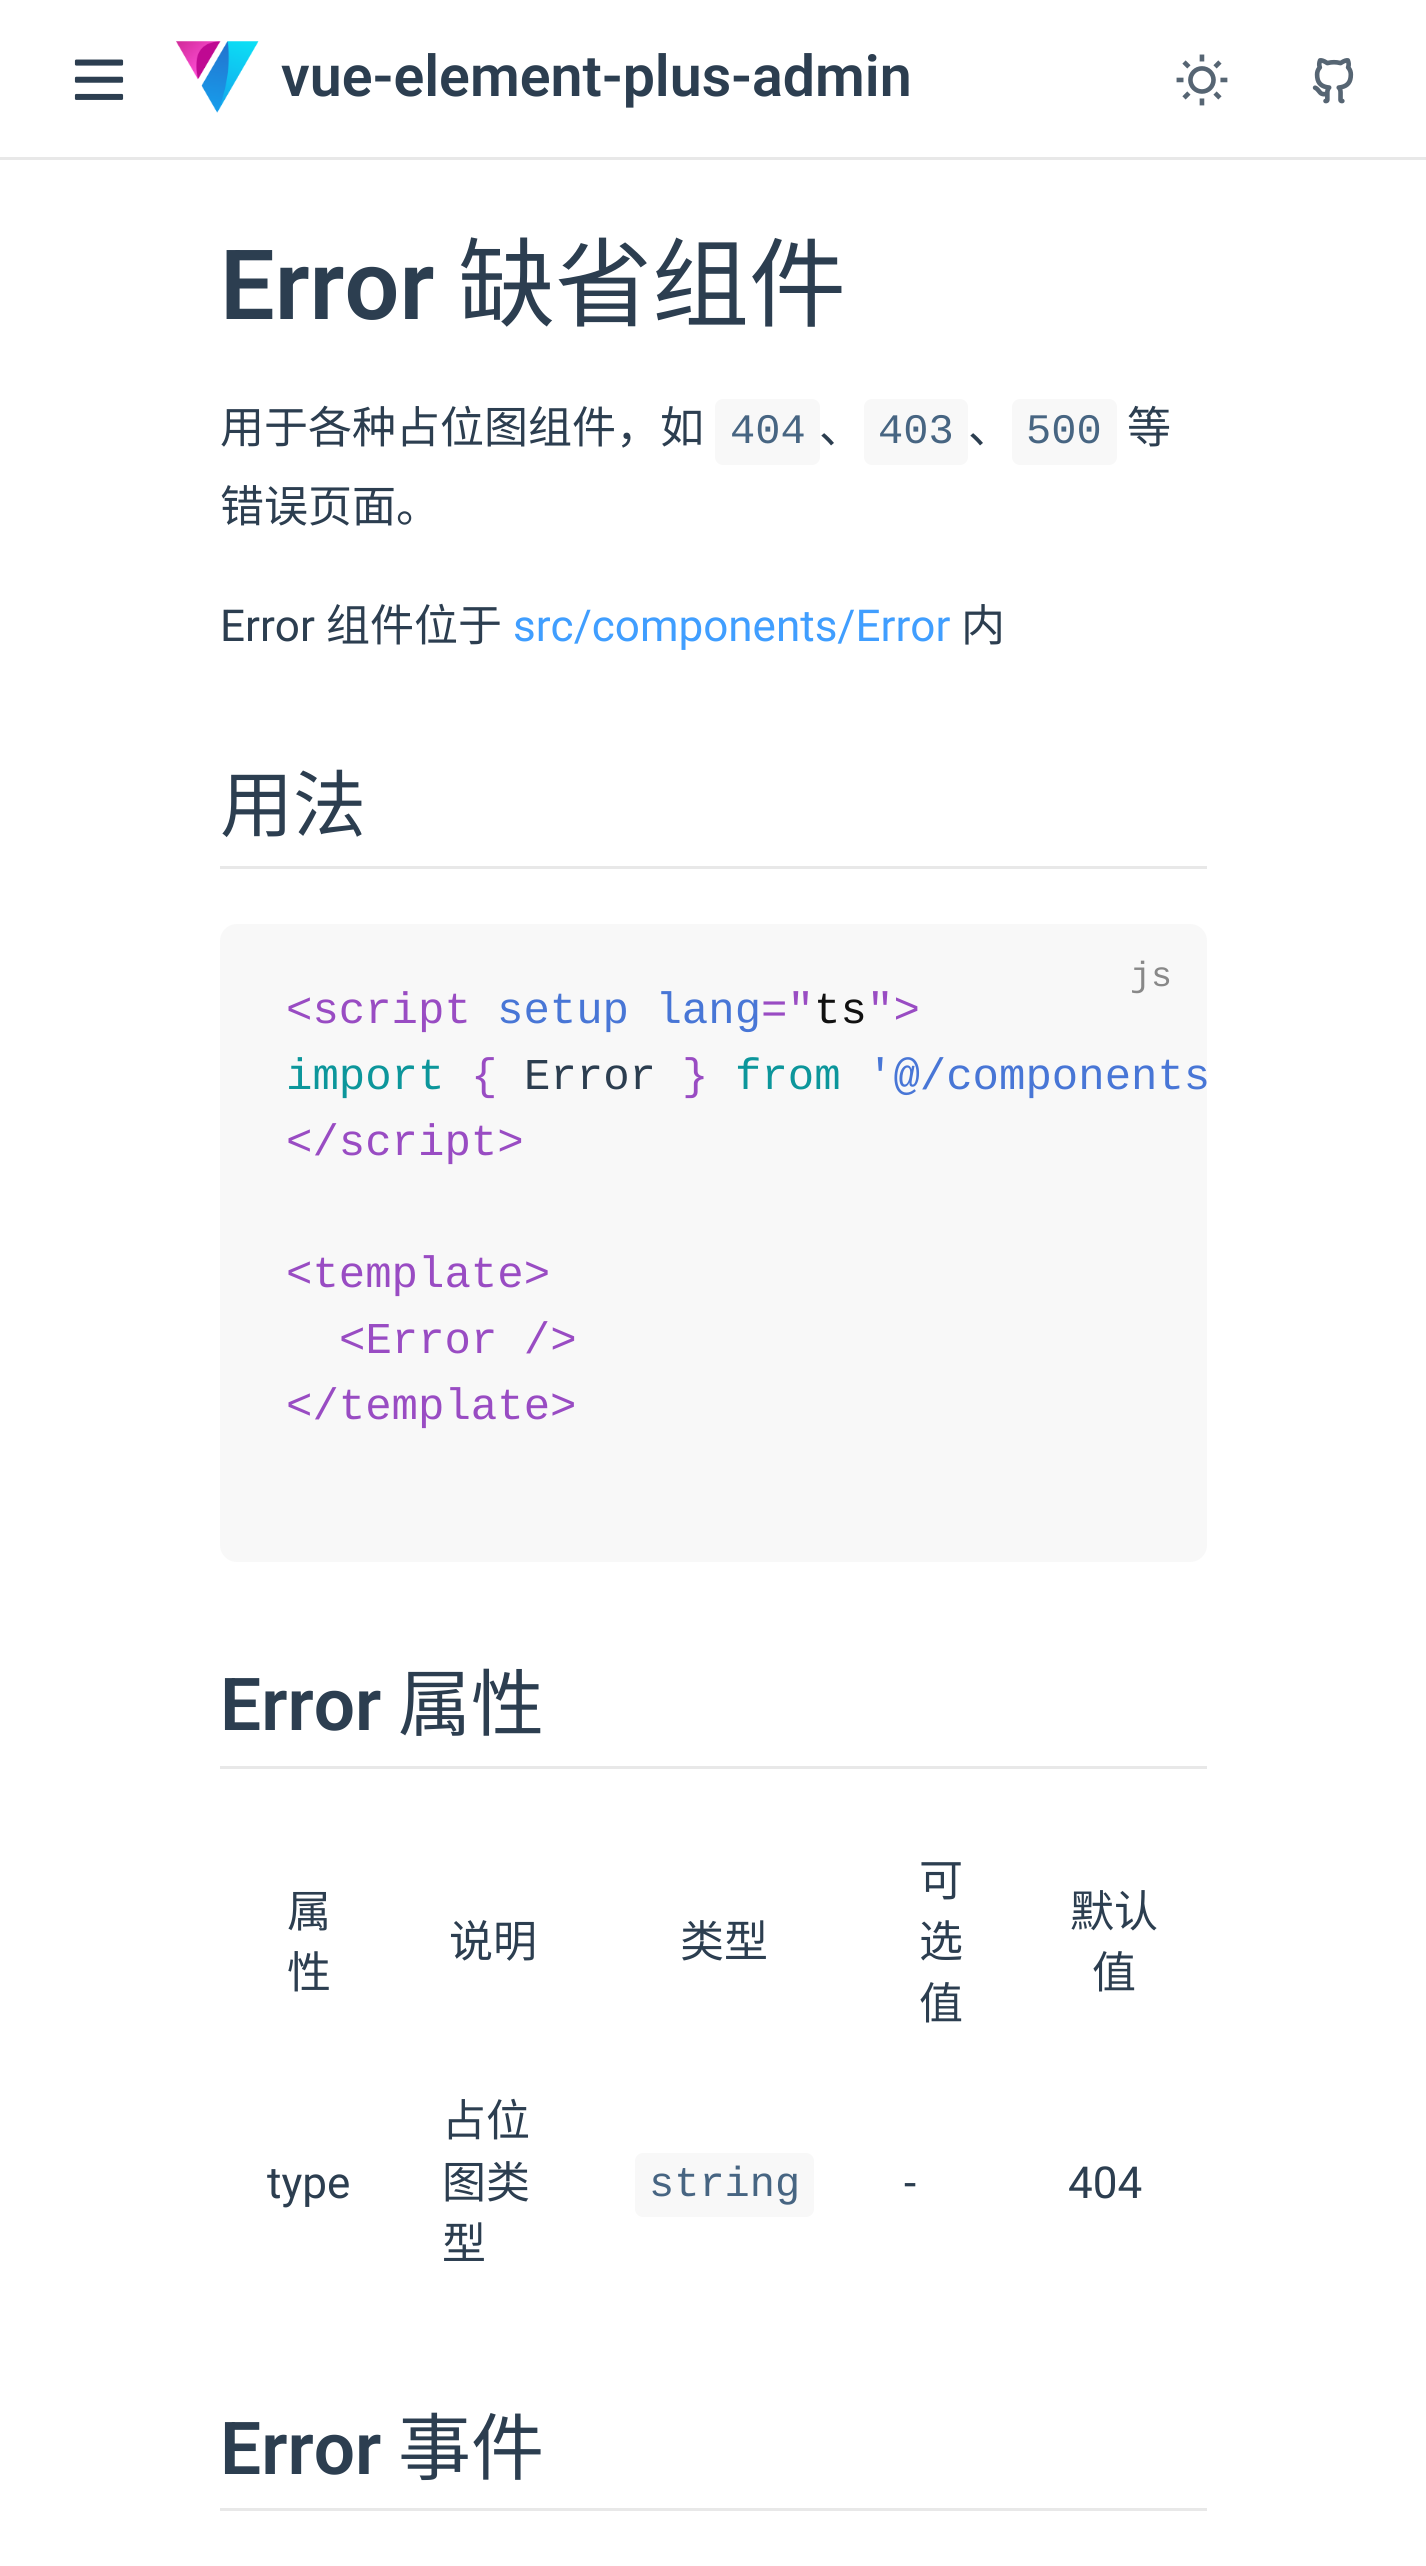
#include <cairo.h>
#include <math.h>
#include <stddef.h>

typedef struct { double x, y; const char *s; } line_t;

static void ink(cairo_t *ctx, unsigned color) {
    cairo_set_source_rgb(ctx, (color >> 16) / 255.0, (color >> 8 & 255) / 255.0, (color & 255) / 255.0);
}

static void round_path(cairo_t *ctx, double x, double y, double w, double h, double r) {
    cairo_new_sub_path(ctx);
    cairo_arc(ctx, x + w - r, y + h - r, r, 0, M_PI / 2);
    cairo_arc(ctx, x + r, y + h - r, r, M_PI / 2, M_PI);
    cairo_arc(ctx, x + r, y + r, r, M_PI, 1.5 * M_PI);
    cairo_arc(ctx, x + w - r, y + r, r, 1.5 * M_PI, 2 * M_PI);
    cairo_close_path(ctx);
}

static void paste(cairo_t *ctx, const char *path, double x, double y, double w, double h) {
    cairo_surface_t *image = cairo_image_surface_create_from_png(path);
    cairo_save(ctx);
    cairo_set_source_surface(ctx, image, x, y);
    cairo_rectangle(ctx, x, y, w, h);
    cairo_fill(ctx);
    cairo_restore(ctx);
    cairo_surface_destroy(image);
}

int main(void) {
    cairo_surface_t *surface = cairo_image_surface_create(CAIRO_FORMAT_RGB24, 1426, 2566);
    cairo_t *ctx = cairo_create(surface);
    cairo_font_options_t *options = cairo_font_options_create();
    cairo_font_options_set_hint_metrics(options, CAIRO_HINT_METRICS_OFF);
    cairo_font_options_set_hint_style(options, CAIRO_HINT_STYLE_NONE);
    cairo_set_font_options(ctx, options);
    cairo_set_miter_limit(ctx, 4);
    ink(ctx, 0xFFFFFF);
    cairo_paint(ctx);
    ink(ctx, 0xE8E8E8);
    cairo_rectangle(ctx, 0, 157, 1426, 3);
    cairo_fill(ctx);
    paste(ctx, "media/1.png", 74, 59, 50, 41);
    paste(ctx, "media/2.png", 176, 41, 83, 72);
    cairo_select_font_face(ctx, "Roboto SemiBold", CAIRO_FONT_SLANT_NORMAL, CAIRO_FONT_WEIGHT_NORMAL);
    cairo_set_font_size(ctx, 57.25);
    ink(ctx, 0x2C3E50);
    cairo_move_to(ctx, 281, 96);
    cairo_show_text(ctx, "vue-element-plus-admin");
    paste(ctx, "media/3.png", 1176, 54, 52, 52);
    paste(ctx, "media/4.png", 1312, 58, 42, 46);
    cairo_set_font_size(ctx, 97);
    cairo_move_to(ctx, 220, 319);
    cairo_show_text(ctx, "Error");
    cairo_select_font_face(ctx, "Noto Sans CJK SC", CAIRO_FONT_SLANT_NORMAL, CAIRO_FONT_WEIGHT_NORMAL);
    cairo_move_to(ctx, 458, 319);
    cairo_show_text(ctx, "缺省组件");
    cairo_set_font_size(ctx, 44);
    cairo_move_to(ctx, 220, 443);
    cairo_show_text(ctx, "用于各种占位图组件，如");
    ink(ctx, 0xF8F8F8);
    round_path(ctx, 715, 399, 105, 66, 8);
    cairo_fill(ctx);
    cairo_select_font_face(ctx, "Liberation Mono", CAIRO_FONT_SLANT_NORMAL, CAIRO_FONT_WEIGHT_NORMAL);
    cairo_set_font_size(ctx, 42);
    ink(ctx, 0x476582);
    cairo_move_to(ctx, 730, 443);
    cairo_show_text(ctx, "404");
    cairo_select_font_face(ctx, "Noto Sans CJK SC", CAIRO_FONT_SLANT_NORMAL, CAIRO_FONT_WEIGHT_NORMAL);
    cairo_set_font_size(ctx, 44);
    ink(ctx, 0x2C3E50);
    cairo_move_to(ctx, 819, 443);
    cairo_show_text(ctx, "、");
    ink(ctx, 0xF8F8F8);
    round_path(ctx, 864, 399, 104, 66, 8);
    cairo_fill(ctx);
    cairo_select_font_face(ctx, "Liberation Mono", CAIRO_FONT_SLANT_NORMAL, CAIRO_FONT_WEIGHT_NORMAL);
    cairo_set_font_size(ctx, 42);
    ink(ctx, 0x476582);
    cairo_move_to(ctx, 878, 443);
    cairo_show_text(ctx, "403");
    cairo_select_font_face(ctx, "Noto Sans CJK SC", CAIRO_FONT_SLANT_NORMAL, CAIRO_FONT_WEIGHT_NORMAL);
    cairo_set_font_size(ctx, 44);
    ink(ctx, 0x2C3E50);
    cairo_move_to(ctx, 968, 443);
    cairo_show_text(ctx, "、");
    ink(ctx, 0xF8F8F8);
    round_path(ctx, 1012, 399, 105, 66, 8);
    cairo_fill(ctx);
    cairo_select_font_face(ctx, "Liberation Mono", CAIRO_FONT_SLANT_NORMAL, CAIRO_FONT_WEIGHT_NORMAL);
    cairo_set_font_size(ctx, 42);
    ink(ctx, 0x476582);
    cairo_move_to(ctx, 1026, 443);
    cairo_show_text(ctx, "500");
    cairo_select_font_face(ctx, "Noto Sans CJK SC", CAIRO_FONT_SLANT_NORMAL, CAIRO_FONT_WEIGHT_NORMAL);
    cairo_set_font_size(ctx, 44);
    ink(ctx, 0x2C3E50);
    cairo_move_to(ctx, 1127, 443);
    cairo_show_text(ctx, "等");
    cairo_move_to(ctx, 220, 522);
    cairo_show_text(ctx, "错误页面。");
    cairo_select_font_face(ctx, "Roboto", CAIRO_FONT_SLANT_NORMAL, CAIRO_FONT_WEIGHT_NORMAL);
    cairo_move_to(ctx, 220, 641);
    cairo_show_text(ctx, "Error");
    cairo_select_font_face(ctx, "Noto Sans CJK SC", CAIRO_FONT_SLANT_NORMAL, CAIRO_FONT_WEIGHT_NORMAL);
    cairo_move_to(ctx, 326, 641);
    cairo_show_text(ctx, "组件位于");
    cairo_select_font_face(ctx, "Roboto", CAIRO_FONT_SLANT_NORMAL, CAIRO_FONT_WEIGHT_NORMAL);
    ink(ctx, 0x409EFF);
    cairo_move_to(ctx, 513, 641);
    cairo_show_text(ctx, "src/components/Error");
    cairo_select_font_face(ctx, "Noto Sans CJK SC", CAIRO_FONT_SLANT_NORMAL, CAIRO_FONT_WEIGHT_NORMAL);
    ink(ctx, 0x2C3E50);
    cairo_move_to(ctx, 961, 641);
    cairo_show_text(ctx, "内");
    ink(ctx, 0xE8E8E8);
    cairo_rectangle(ctx, 220, 866, 987, 3);
    cairo_fill(ctx);
    cairo_set_font_size(ctx, 73);
    ink(ctx, 0x2C3E50);
    cairo_move_to(ctx, 220, 831);
    cairo_show_text(ctx, "用法");
    ink(ctx, 0xF8F8F8);
    round_path(ctx, 220, 924, 987, 638, 17);
    cairo_fill(ctx);
    cairo_select_font_face(ctx, "Liberation Mono", CAIRO_FONT_SLANT_NORMAL, CAIRO_FONT_WEIGHT_NORMAL);
    cairo_set_font_size(ctx, 35);
    ink(ctx, 0x888888);
    cairo_move_to(ctx, 1130, 986);
    cairo_show_text(ctx, "js");
    cairo_set_font_size(ctx, 44);
    ink(ctx, 0x0C969B);
    cairo_move_to(ctx, 286, 1089);
    cairo_show_text(ctx, "import");
    ink(ctx, 0x994CC3);
    cairo_move_to(ctx, 471, 1089);
    cairo_show_text(ctx, "{");
    ink(ctx, 0x2C3E50);
    cairo_move_to(ctx, 524, 1089);
    cairo_show_text(ctx, "Error");
    ink(ctx, 0x994CC3);
    cairo_move_to(ctx, 682, 1089);
    cairo_show_text(ctx, "}");
    ink(ctx, 0x0C969B);
    cairo_move_to(ctx, 735, 1089);
    cairo_show_text(ctx, "from");
    ink(ctx, 0x4876D6);
    cairo_move_to(ctx, 867, 1089);
    cairo_show_text(ctx, "'@/components");
    ink(ctx, 0x994CC3);
    cairo_move_to(ctx, 286, 1023);
    cairo_show_text(ctx, "<script");
    ink(ctx, 0x4876D6);
    cairo_move_to(ctx, 497, 1023);
    cairo_show_text(ctx, "setup lang");
    ink(ctx, 0x994CC3);
    cairo_move_to(ctx, 761, 1023);
    cairo_show_text(ctx, "=\"");
    ink(ctx, 0x111111);
    cairo_move_to(ctx, 814, 1023);
    cairo_show_text(ctx, "ts");
    ink(ctx, 0x994CC3);
    {
        static const line_t items[] = {
            {867, 1023, "\">"},
            {286, 1155, "</script>"},
            {286, 1287, "<template>"},
            {339, 1353, "<Error />"},
            {286, 1419, "</template>"},
        };
        for (size_t i = 0; i < sizeof items / sizeof *items; i++) {
            cairo_move_to(ctx, items[i].x, items[i].y);
            cairo_show_text(ctx, items[i].s);
        }
    }
    ink(ctx, 0xE8E8E8);
    cairo_rectangle(ctx, 220, 1766, 987, 3);
    cairo_fill(ctx);
    cairo_select_font_face(ctx, "Roboto SemiBold", CAIRO_FONT_SLANT_NORMAL, CAIRO_FONT_WEIGHT_NORMAL);
    cairo_set_font_size(ctx, 73);
    ink(ctx, 0x2C3E50);
    cairo_move_to(ctx, 220, 1730);
    cairo_show_text(ctx, "Error");
    cairo_select_font_face(ctx, "Noto Sans CJK SC", CAIRO_FONT_SLANT_NORMAL, CAIRO_FONT_WEIGHT_NORMAL);
    cairo_move_to(ctx, 398, 1730);
    cairo_show_text(ctx, "属性");
    cairo_set_font_size(ctx, 44);
    {
        static const line_t items[] = {
            {287, 1927, "属"},
            {287, 1988, "性"},
            {449, 1957, "说明"},
            {680, 1957, "类型"},
            {919, 1896, "可"},
            {919, 1957, "选"},
            {919, 2019, "值"},
            {1070, 1927, "默认"},
            {1092, 1988, "值"},
        };
        for (size_t i = 0; i < sizeof items / sizeof *items; i++) {
            cairo_move_to(ctx, items[i].x, items[i].y);
            cairo_show_text(ctx, items[i].s);
        }
    }
    cairo_select_font_face(ctx, "Roboto", CAIRO_FONT_SLANT_NORMAL, CAIRO_FONT_WEIGHT_NORMAL);
    cairo_move_to(ctx, 267, 2198);
    cairo_show_text(ctx, "type");
    cairo_select_font_face(ctx, "Noto Sans CJK SC", CAIRO_FONT_SLANT_NORMAL, CAIRO_FONT_WEIGHT_NORMAL);
    {
        static const line_t items[] = {
            {442, 2136, "占位"},
            {442, 2198, "图类"},
            {442, 2259, "型"},
        };
        for (size_t i = 0; i < sizeof items / sizeof *items; i++) {
            cairo_move_to(ctx, items[i].x, items[i].y);
            cairo_show_text(ctx, items[i].s);
        }
    }
    ink(ctx, 0xF8F8F8);
    round_path(ctx, 635, 2153, 179, 64, 8);
    cairo_fill(ctx);
    cairo_select_font_face(ctx, "Liberation Mono", CAIRO_FONT_SLANT_NORMAL, CAIRO_FONT_WEIGHT_NORMAL);
    cairo_set_font_size(ctx, 42);
    ink(ctx, 0x476582);
    cairo_move_to(ctx, 649, 2196);
    cairo_show_text(ctx, "string");
    cairo_select_font_face(ctx, "Roboto", CAIRO_FONT_SLANT_NORMAL, CAIRO_FONT_WEIGHT_NORMAL);
    cairo_set_font_size(ctx, 44);
    ink(ctx, 0x2C3E50);
    cairo_move_to(ctx, 904, 2198);
    cairo_show_text(ctx, "-");
    cairo_move_to(ctx, 1068, 2198);
    cairo_show_text(ctx, "404");
    ink(ctx, 0xE8E8E8);
    cairo_rectangle(ctx, 220, 2508, 987, 3);
    cairo_fill(ctx);
    cairo_select_font_face(ctx, "Roboto SemiBold", CAIRO_FONT_SLANT_NORMAL, CAIRO_FONT_WEIGHT_NORMAL);
    cairo_set_font_size(ctx, 73);
    ink(ctx, 0x2C3E50);
    cairo_move_to(ctx, 220, 2474);
    cairo_show_text(ctx, "Error");
    cairo_select_font_face(ctx, "Noto Sans CJK SC", CAIRO_FONT_SLANT_NORMAL, CAIRO_FONT_WEIGHT_NORMAL);
    cairo_move_to(ctx, 398, 2474);
    cairo_show_text(ctx, "事件");
    cairo_surface_write_to_png(surface, "image.png");
    cairo_font_options_destroy(options);
    cairo_destroy(ctx);
    cairo_surface_destroy(surface);
    return 0;
}
